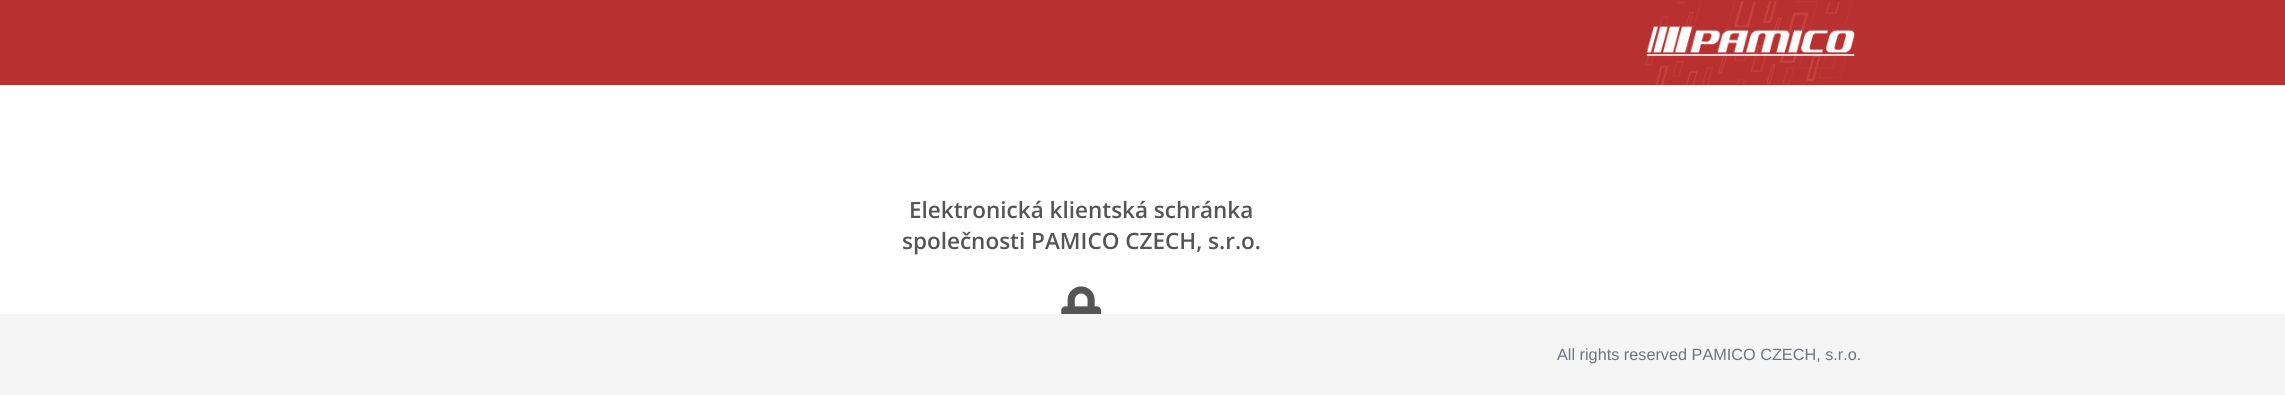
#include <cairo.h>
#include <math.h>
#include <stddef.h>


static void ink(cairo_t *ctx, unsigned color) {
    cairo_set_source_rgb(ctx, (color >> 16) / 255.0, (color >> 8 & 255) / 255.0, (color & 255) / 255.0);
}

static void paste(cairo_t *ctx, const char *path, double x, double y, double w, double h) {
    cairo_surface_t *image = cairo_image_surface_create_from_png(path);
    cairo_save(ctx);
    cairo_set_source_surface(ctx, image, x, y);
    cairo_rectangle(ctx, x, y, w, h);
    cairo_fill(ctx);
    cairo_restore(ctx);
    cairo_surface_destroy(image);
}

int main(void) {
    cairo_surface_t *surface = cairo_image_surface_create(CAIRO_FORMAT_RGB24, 2285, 395);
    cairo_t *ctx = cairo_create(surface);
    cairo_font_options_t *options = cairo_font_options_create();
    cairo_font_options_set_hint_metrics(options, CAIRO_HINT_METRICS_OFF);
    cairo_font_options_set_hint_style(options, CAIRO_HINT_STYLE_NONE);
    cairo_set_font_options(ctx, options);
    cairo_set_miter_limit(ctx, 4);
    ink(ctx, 0xFFFFFF);
    cairo_paint(ctx);
    ink(ctx, 0xB83130);
    cairo_rectangle(ctx, 0, 0, 2285, 85);
    cairo_fill(ctx);
    paste(ctx, "media/1.png", 1645, 1, 210, 84);
    cairo_select_font_face(ctx, "Open Sans SemiBold", CAIRO_FONT_SLANT_NORMAL, CAIRO_FONT_WEIGHT_NORMAL);
    cairo_set_font_size(ctx, 22.5);
    ink(ctx, 0x555555);
    cairo_move_to(ctx, 909, 218);
    cairo_show_text(ctx, "Elektronická klientská schránka");
    cairo_move_to(ctx, 902, 249);
    cairo_show_text(ctx, "společnosti PAMICO CZECH, s.r.o.");
    paste(ctx, "media/2.png", 1061, 286, 41, 28);
    ink(ctx, 0xF5F5F5);
    cairo_rectangle(ctx, 0, 314, 2285, 81);
    cairo_fill(ctx);
    cairo_select_font_face(ctx, "Liberation Sans", CAIRO_FONT_SLANT_NORMAL, CAIRO_FONT_WEIGHT_NORMAL);
    cairo_set_font_size(ctx, 16.25);
    ink(ctx, 0x6C757D);
    cairo_move_to(ctx, 1557, 360);
    cairo_show_text(ctx, "All rights reserved PAMICO CZECH, s.r.o.");
    cairo_surface_write_to_png(surface, "image.png");
    cairo_font_options_destroy(options);
    cairo_destroy(ctx);
    cairo_surface_destroy(surface);
    return 0;
}
